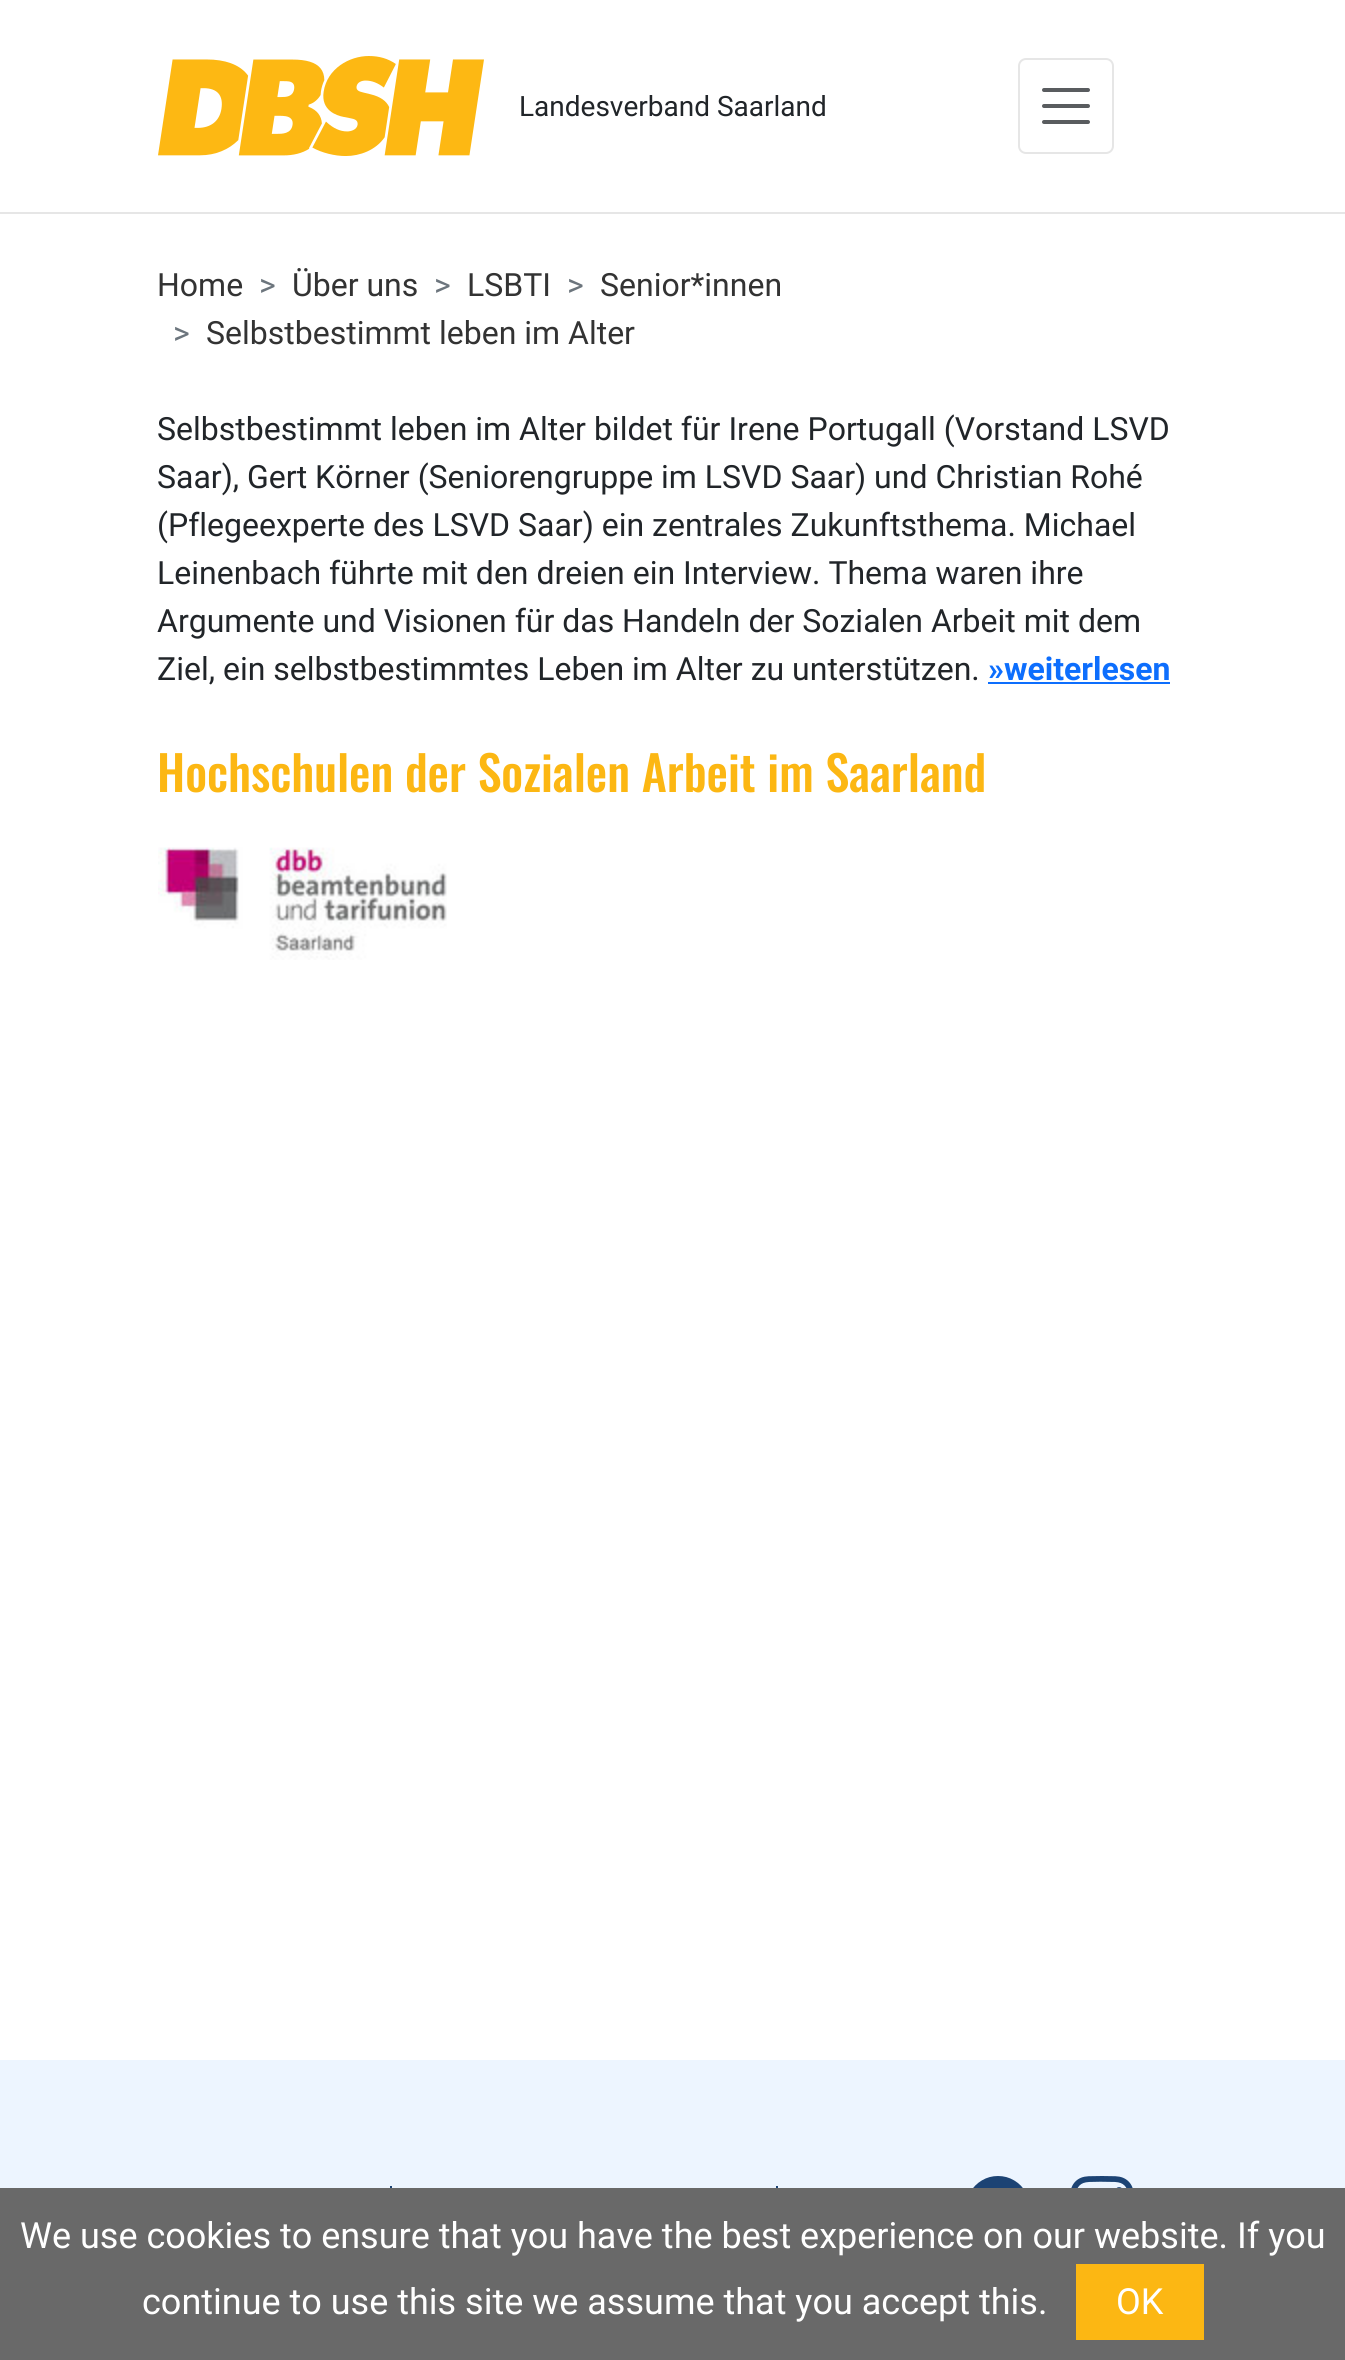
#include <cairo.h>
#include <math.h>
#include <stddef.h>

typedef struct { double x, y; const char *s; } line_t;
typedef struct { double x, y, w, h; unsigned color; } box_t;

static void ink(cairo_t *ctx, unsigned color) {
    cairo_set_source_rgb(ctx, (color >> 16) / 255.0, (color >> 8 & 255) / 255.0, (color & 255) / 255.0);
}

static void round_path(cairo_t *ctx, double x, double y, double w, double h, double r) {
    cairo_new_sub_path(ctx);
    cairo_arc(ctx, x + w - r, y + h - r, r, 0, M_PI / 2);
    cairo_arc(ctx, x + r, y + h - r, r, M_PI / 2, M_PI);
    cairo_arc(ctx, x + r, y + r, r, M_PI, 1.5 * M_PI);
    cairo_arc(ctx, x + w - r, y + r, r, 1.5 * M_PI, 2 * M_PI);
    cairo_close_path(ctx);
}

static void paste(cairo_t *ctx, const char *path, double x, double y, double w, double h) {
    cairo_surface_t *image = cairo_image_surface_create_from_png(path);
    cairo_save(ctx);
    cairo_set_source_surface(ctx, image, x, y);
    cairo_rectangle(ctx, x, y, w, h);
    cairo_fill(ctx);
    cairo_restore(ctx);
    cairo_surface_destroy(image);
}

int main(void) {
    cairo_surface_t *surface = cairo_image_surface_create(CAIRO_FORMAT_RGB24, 1345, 2360);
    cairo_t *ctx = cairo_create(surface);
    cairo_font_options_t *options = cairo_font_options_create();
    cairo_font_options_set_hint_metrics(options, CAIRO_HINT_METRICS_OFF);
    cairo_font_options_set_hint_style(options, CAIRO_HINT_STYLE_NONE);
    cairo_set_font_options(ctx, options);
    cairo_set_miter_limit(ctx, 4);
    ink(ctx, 0xFFFFFF);
    cairo_paint(ctx);
    ink(ctx, 0xE6E6E6);
    cairo_rectangle(ctx, 0, 212, 1345, 2);
    cairo_fill(ctx);
    paste(ctx, "media/1.png", 158, 56, 326, 100);
    cairo_select_font_face(ctx, "Roboto", CAIRO_FONT_SLANT_NORMAL, CAIRO_FONT_WEIGHT_NORMAL);
    cairo_set_font_size(ctx, 28);
    ink(ctx, 0x212529);
    cairo_move_to(ctx, 519, 116);
    cairo_show_text(ctx, "Landesverband Saarland");
    round_path(ctx, 1019, 59, 94, 94, 7);
    ink(ctx, 0xE6E6E6);
    cairo_stroke(ctx);
    cairo_new_path(ctx);
    cairo_move_to(ctx, 1044, 90);
    cairo_line_to(ctx, 1088, 90);
    cairo_move_to(ctx, 1044, 106);
    cairo_line_to(ctx, 1088, 106);
    cairo_move_to(ctx, 1044, 122);
    cairo_line_to(ctx, 1088, 122);
    ink(ctx, 0x595C5F);
    cairo_set_line_width(ctx, 4);
    cairo_set_line_cap(ctx, CAIRO_LINE_CAP_ROUND);
    cairo_stroke(ctx);
    cairo_set_font_size(ctx, 32);
    ink(ctx, 0x333333);
    cairo_move_to(ctx, 157, 296);
    cairo_show_text(ctx, "Home");
    ink(ctx, 0x6C757D);
    cairo_move_to(ctx, 259, 296);
    cairo_show_text(ctx, ">");
    ink(ctx, 0x333333);
    cairo_move_to(ctx, 292, 296);
    cairo_show_text(ctx, "Über uns");
    ink(ctx, 0x6C757D);
    cairo_move_to(ctx, 434, 296);
    cairo_show_text(ctx, ">");
    ink(ctx, 0x333333);
    cairo_move_to(ctx, 467, 296);
    cairo_show_text(ctx, "LSBTI");
    ink(ctx, 0x6C757D);
    cairo_move_to(ctx, 567, 296);
    cairo_show_text(ctx, ">");
    ink(ctx, 0x333333);
    cairo_move_to(ctx, 600, 296);
    cairo_show_text(ctx, "Senior*innen");
    ink(ctx, 0x6C757D);
    cairo_move_to(ctx, 173, 344);
    cairo_show_text(ctx, ">");
    ink(ctx, 0x333333);
    cairo_move_to(ctx, 206, 344);
    cairo_show_text(ctx, "Selbstbestimmt leben im Alter");
    ink(ctx, 0x212529);
    {
        static const line_t items[] = {
            {157, 440, "Selbstbestimmt leben im Alter bildet für Irene Portugall (Vorstand LSVD"},
            {157, 488, "Saar), Gert Körner (Seniorengruppe im LSVD Saar) und Christian Rohé"},
            {157, 536, "(Pflegeexperte des LSVD Saar) ein zentrales Zukunftsthema. Michael"},
            {157, 584, "Leinenbach führte mit den dreien ein Interview. Thema waren ihre"},
            {157, 632, "Argumente und Visionen für das Handeln der Sozialen Arbeit mit dem"},
            {157, 680, "Ziel, ein selbstbestimmtes Leben im Alter zu unterstützen."},
        };
        for (size_t i = 0; i < sizeof items / sizeof *items; i++) {
            cairo_move_to(ctx, items[i].x, items[i].y);
            cairo_show_text(ctx, items[i].s);
        }
    }
    cairo_select_font_face(ctx, "Roboto", CAIRO_FONT_SLANT_NORMAL, CAIRO_FONT_WEIGHT_BOLD);
    ink(ctx, 0x0D6EFD);
    cairo_move_to(ctx, 988, 680);
    cairo_show_text(ctx, "»weiterlesen");
    cairo_rectangle(ctx, 988, 682, 182, 2);
    cairo_fill(ctx);
    cairo_select_font_face(ctx, "Oswald Medium", CAIRO_FONT_SLANT_NORMAL, CAIRO_FONT_WEIGHT_NORMAL);
    cairo_set_font_size(ctx, 48);
    ink(ctx, 0xFCB713);
    cairo_move_to(ctx, 157, 792);
    cairo_show_text(ctx, "Hochschulen der Sozialen Arbeit im Saarland");
    paste(ctx, "media/2.png", 158, 847, 289, 113);
    {
        static const box_t items[] = {
            {0, 2060, 1345, 128, 0xEDF5FF},
            {390, 2186, 2, 2, 0x1C4374},
            {776, 2186, 2, 2, 0x1C4374},
        };
        for (size_t i = 0; i < sizeof items / sizeof *items; i++) {
            ink(ctx, items[i].color);
            cairo_rectangle(ctx, items[i].x, items[i].y, items[i].w, items[i].h);
            cairo_fill(ctx);
        }
    }
    paste(ctx, "media/3.png", 973, 2176, 50, 12);
    paste(ctx, "media/4.png", 1071, 2176, 62, 12);
    ink(ctx, 0x696969);
    cairo_rectangle(ctx, 0, 2188, 1345, 172);
    cairo_fill(ctx);
    cairo_select_font_face(ctx, "Roboto", CAIRO_FONT_SLANT_NORMAL, CAIRO_FONT_WEIGHT_NORMAL);
    cairo_set_font_size(ctx, 36);
    ink(ctx, 0xFFFFFF);
    cairo_move_to(ctx, 20, 2248);
    cairo_show_text(ctx, "We use cookies to ensure that you have the best experience on our website. If you");
    cairo_move_to(ctx, 142, 2314);
    cairo_show_text(ctx, "continue to use this site we assume that you accept this.");
    ink(ctx, 0xFCB713);
    cairo_rectangle(ctx, 1076, 2264, 128, 76);
    cairo_fill(ctx);
    ink(ctx, 0xFFFFFF);
    cairo_move_to(ctx, 1116, 2314);
    cairo_show_text(ctx, "OK");
    cairo_surface_write_to_png(surface, "image.png");
    cairo_font_options_destroy(options);
    cairo_destroy(ctx);
    cairo_surface_destroy(surface);
    return 0;
}
